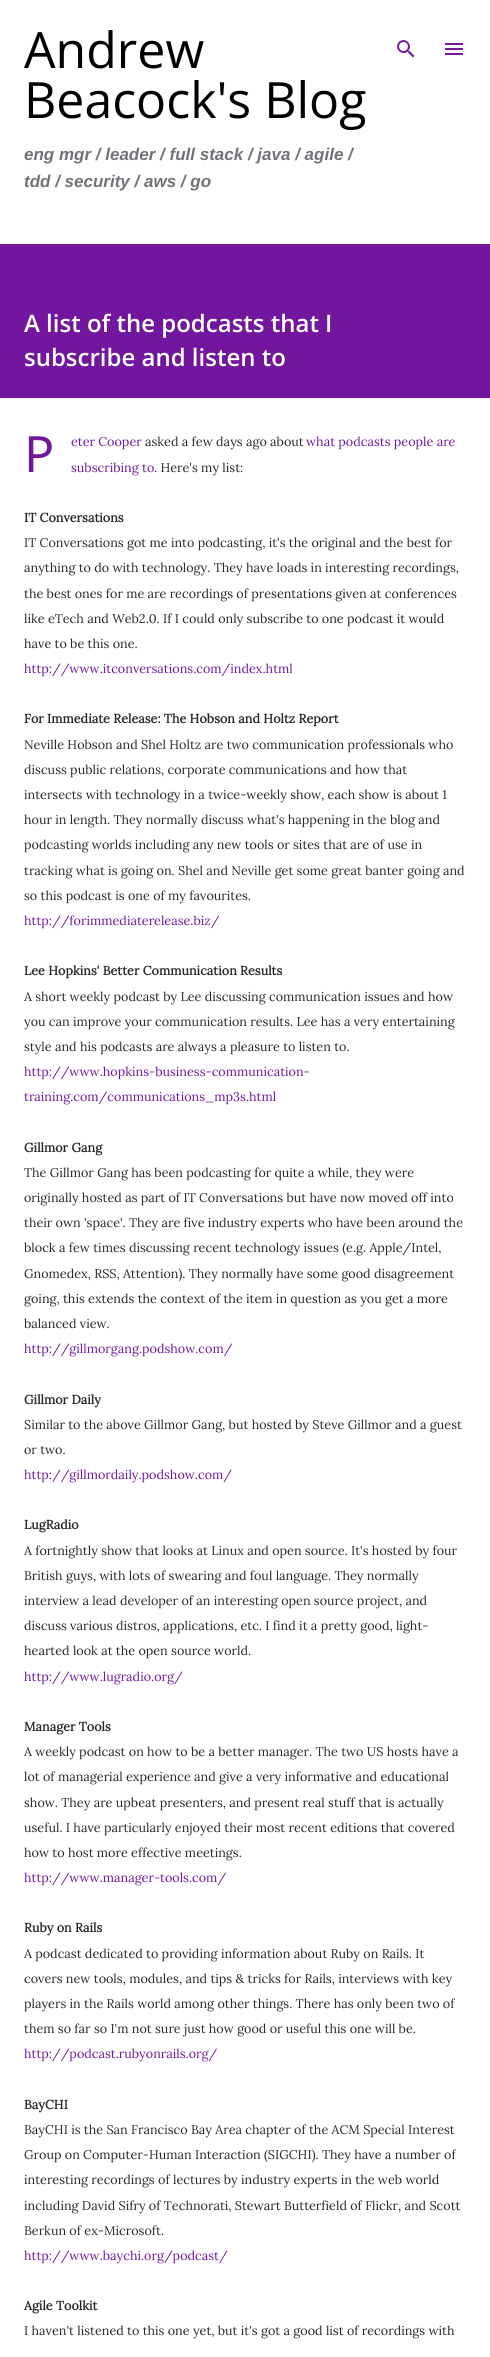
#include <cairo.h>
#include <math.h>
#include <stddef.h>

typedef struct { double x, y; const char *s; } line_t;

static void ink(cairo_t *ctx, unsigned color) {
    cairo_set_source_rgb(ctx, (color >> 16) / 255.0, (color >> 8 & 255) / 255.0, (color & 255) / 255.0);
}

static void paste(cairo_t *ctx, const char *path, double x, double y, double w, double h) {
    cairo_surface_t *image = cairo_image_surface_create_from_png(path);
    cairo_save(ctx);
    cairo_set_source_surface(ctx, image, x, y);
    cairo_rectangle(ctx, x, y, w, h);
    cairo_fill(ctx);
    cairo_restore(ctx);
    cairo_surface_destroy(image);
}

int main(void) {
    cairo_surface_t *surface = cairo_image_surface_create(CAIRO_FORMAT_RGB24, 490, 2357);
    cairo_t *ctx = cairo_create(surface);
    cairo_font_options_t *options = cairo_font_options_create();
    cairo_font_options_set_hint_metrics(options, CAIRO_HINT_METRICS_OFF);
    cairo_font_options_set_hint_style(options, CAIRO_HINT_STYLE_NONE);
    cairo_set_font_options(ctx, options);
    cairo_set_miter_limit(ctx, 4);
    ink(ctx, 0xFFFFFF);
    cairo_paint(ctx);
    cairo_select_font_face(ctx, "Open Sans", CAIRO_FONT_SLANT_NORMAL, CAIRO_FONT_WEIGHT_NORMAL);
    cairo_set_font_size(ctx, 50);
    ink(ctx, 0x000000);
    cairo_move_to(ctx, 24, 68);
    cairo_show_text(ctx, "Andrew");
    cairo_move_to(ctx, 24, 118);
    cairo_show_text(ctx, "Beacock's Blog");
    cairo_select_font_face(ctx, "Liberation Sans", CAIRO_FONT_SLANT_ITALIC, CAIRO_FONT_WEIGHT_BOLD);
    cairo_set_font_size(ctx, 17);
    ink(ctx, 0x747278);
    cairo_move_to(ctx, 24, 160);
    cairo_show_text(ctx, "eng mgr / leader / full stack / java / agile /");
    cairo_move_to(ctx, 24, 187);
    cairo_show_text(ctx, "tdd / security / aws / go");
    paste(ctx, "media/1.png", 397, 40, 18, 18);
    paste(ctx, "media/2.png", 445, 43, 18, 12);
    ink(ctx, 0x72179D);
    cairo_rectangle(ctx, 0, 244, 490, 154);
    cairo_fill(ctx);
    cairo_select_font_face(ctx, "Open Sans SemiBold", CAIRO_FONT_SLANT_NORMAL, CAIRO_FONT_WEIGHT_NORMAL);
    cairo_set_font_size(ctx, 24);
    ink(ctx, 0xFFFFFF);
    cairo_move_to(ctx, 24, 332);
    cairo_show_text(ctx, "A list of the podcasts that I");
    cairo_move_to(ctx, 24, 366);
    cairo_show_text(ctx, "subscribe and listen to");
    cairo_select_font_face(ctx, "Noto Sans", CAIRO_FONT_SLANT_NORMAL, CAIRO_FONT_WEIGHT_NORMAL);
    cairo_set_font_size(ctx, 50);
    ink(ctx, 0x72179D);
    cairo_move_to(ctx, 24, 472);
    cairo_show_text(ctx, "P");
    cairo_select_font_face(ctx, "Lora", CAIRO_FONT_SLANT_NORMAL, CAIRO_FONT_WEIGHT_NORMAL);
    cairo_set_font_size(ctx, 12.6);
    cairo_move_to(ctx, 71, 446);
    cairo_show_text(ctx, "eter Cooper");
    ink(ctx, 0x292929);
    cairo_move_to(ctx, 145, 446);
    cairo_show_text(ctx, "asked a few days ago about");
    ink(ctx, 0x72179D);
    cairo_move_to(ctx, 306, 446);
    cairo_show_text(ctx, "what podcasts people are");
    cairo_move_to(ctx, 71, 472);
    cairo_show_text(ctx, "subscribing to");
    ink(ctx, 0x292929);
    cairo_move_to(ctx, 154, 472);
    cairo_show_text(ctx, ". Here's my list:");
    cairo_select_font_face(ctx, "Lora", CAIRO_FONT_SLANT_NORMAL, CAIRO_FONT_WEIGHT_BOLD);
    cairo_move_to(ctx, 24, 522);
    cairo_show_text(ctx, "IT Conversations");
    cairo_select_font_face(ctx, "Lora", CAIRO_FONT_SLANT_NORMAL, CAIRO_FONT_WEIGHT_NORMAL);
    {
        static const line_t items[] = {
            {24, 547, "IT Conversations got me into podcasting, it's the original and the best for"},
            {24, 572, "anything to do with technology. They have loads in interesting recordings,"},
            {24, 598, "the best ones for me are recordings of presentations given at conferences"},
            {24, 623, "like eTech and Web2.0. If I could only subscribe to one podcast it would"},
            {24, 648, "have to be this one."},
        };
        for (size_t i = 0; i < sizeof items / sizeof *items; i++) {
            cairo_move_to(ctx, items[i].x, items[i].y);
            cairo_show_text(ctx, items[i].s);
        }
    }
    ink(ctx, 0x72179D);
    cairo_move_to(ctx, 24, 673);
    cairo_show_text(ctx, "http://www.itconversations.com/index.html");
    cairo_select_font_face(ctx, "Lora", CAIRO_FONT_SLANT_NORMAL, CAIRO_FONT_WEIGHT_BOLD);
    ink(ctx, 0x292929);
    cairo_move_to(ctx, 24, 723);
    cairo_show_text(ctx, "For Immediate Release: The Hobson and Holtz Report");
    cairo_select_font_face(ctx, "Lora", CAIRO_FONT_SLANT_NORMAL, CAIRO_FONT_WEIGHT_NORMAL);
    {
        static const line_t items[] = {
            {24, 749, "Neville Hobson and Shel Holtz are two communication professionals who"},
            {24, 774, "discuss public relations, corporate communications and how that"},
            {24, 799, "intersects with technology in a twice-weekly show, each show is about 1"},
            {24, 824, "hour in length. They normally discuss what's happening in the blog and"},
            {24, 849, "podcasting worlds including any new tools or sites that are of use in"},
            {24, 875, "tracking what is going on. Shel and Neville get some great banter going and"},
            {24, 900, "so this podcast is one of my favourites."},
        };
        for (size_t i = 0; i < sizeof items / sizeof *items; i++) {
            cairo_move_to(ctx, items[i].x, items[i].y);
            cairo_show_text(ctx, items[i].s);
        }
    }
    ink(ctx, 0x72179D);
    cairo_move_to(ctx, 24, 925);
    cairo_show_text(ctx, "http://forimmediaterelease.biz/");
    cairo_select_font_face(ctx, "Lora", CAIRO_FONT_SLANT_NORMAL, CAIRO_FONT_WEIGHT_BOLD);
    ink(ctx, 0x292929);
    cairo_move_to(ctx, 24, 975);
    cairo_show_text(ctx, "Lee Hopkins' Better Communication Results");
    cairo_select_font_face(ctx, "Lora", CAIRO_FONT_SLANT_NORMAL, CAIRO_FONT_WEIGHT_NORMAL);
    {
        static const line_t items[] = {
            {24, 1001, "A short weekly podcast by Lee discussing communication issues and how"},
            {24, 1026, "you can improve your communication results. Lee has a very entertaining"},
            {24, 1051, "style and his podcasts are always a pleasure to listen to."},
        };
        for (size_t i = 0; i < sizeof items / sizeof *items; i++) {
            cairo_move_to(ctx, items[i].x, items[i].y);
            cairo_show_text(ctx, items[i].s);
        }
    }
    ink(ctx, 0x72179D);
    cairo_move_to(ctx, 24, 1076);
    cairo_show_text(ctx, "http://www.hopkins-business-communication-");
    cairo_move_to(ctx, 24, 1101);
    cairo_show_text(ctx, "training.com/communications_mp3s.html");
    cairo_select_font_face(ctx, "Lora", CAIRO_FONT_SLANT_NORMAL, CAIRO_FONT_WEIGHT_BOLD);
    ink(ctx, 0x292929);
    cairo_move_to(ctx, 24, 1152);
    cairo_show_text(ctx, "Gillmor Gang");
    cairo_select_font_face(ctx, "Lora", CAIRO_FONT_SLANT_NORMAL, CAIRO_FONT_WEIGHT_NORMAL);
    {
        static const line_t items[] = {
            {24, 1177, "The Gillmor Gang has been podcasting for quite a while, they were"},
            {24, 1202, "originally hosted as part of IT Conversations but have now moved off into"},
            {24, 1227, "their own 'space'. They are five industry experts who have been around the"},
            {24, 1252, "block a few times discussing recent technology issues (e.g. Apple/Intel,"},
            {24, 1278, "Gnomedex, RSS, Attention). They normally have some good disagreement"},
            {24, 1303, "going, this extends the context of the item in question as you get a more"},
            {24, 1328, "balanced view."},
        };
        for (size_t i = 0; i < sizeof items / sizeof *items; i++) {
            cairo_move_to(ctx, items[i].x, items[i].y);
            cairo_show_text(ctx, items[i].s);
        }
    }
    ink(ctx, 0x72179D);
    cairo_move_to(ctx, 24, 1353);
    cairo_show_text(ctx, "http://gillmorgang.podshow.com/");
    cairo_select_font_face(ctx, "Lora", CAIRO_FONT_SLANT_NORMAL, CAIRO_FONT_WEIGHT_BOLD);
    ink(ctx, 0x292929);
    cairo_move_to(ctx, 24, 1404);
    cairo_show_text(ctx, "Gillmor Daily");
    cairo_select_font_face(ctx, "Lora", CAIRO_FONT_SLANT_NORMAL, CAIRO_FONT_WEIGHT_NORMAL);
    cairo_move_to(ctx, 24, 1429);
    cairo_show_text(ctx, "Similar to the above Gillmor Gang, but hosted by Steve Gillmor and a guest");
    cairo_move_to(ctx, 24, 1454);
    cairo_show_text(ctx, "or two.");
    ink(ctx, 0x72179D);
    cairo_move_to(ctx, 24, 1479);
    cairo_show_text(ctx, "http://gillmordaily.podshow.com/");
    cairo_select_font_face(ctx, "Lora", CAIRO_FONT_SLANT_NORMAL, CAIRO_FONT_WEIGHT_BOLD);
    ink(ctx, 0x292929);
    cairo_move_to(ctx, 24, 1529);
    cairo_show_text(ctx, "LugRadio");
    cairo_select_font_face(ctx, "Lora", CAIRO_FONT_SLANT_NORMAL, CAIRO_FONT_WEIGHT_NORMAL);
    {
        static const line_t items[] = {
            {24, 1555, "A fortnightly show that looks at Linux and open source. It's hosted by four"},
            {24, 1580, "British guys, with lots of swearing and foul language. They normally"},
            {24, 1605, "interview a lead developer of an interesting open source project, and"},
            {24, 1630, "discuss various distros, applications, etc. I find it a pretty good, light-"},
            {24, 1655, "hearted look at the open source world."},
        };
        for (size_t i = 0; i < sizeof items / sizeof *items; i++) {
            cairo_move_to(ctx, items[i].x, items[i].y);
            cairo_show_text(ctx, items[i].s);
        }
    }
    ink(ctx, 0x72179D);
    cairo_move_to(ctx, 24, 1681);
    cairo_show_text(ctx, "http://www.lugradio.org/");
    cairo_select_font_face(ctx, "Lora", CAIRO_FONT_SLANT_NORMAL, CAIRO_FONT_WEIGHT_BOLD);
    ink(ctx, 0x292929);
    cairo_move_to(ctx, 24, 1731);
    cairo_show_text(ctx, "Manager Tools");
    cairo_select_font_face(ctx, "Lora", CAIRO_FONT_SLANT_NORMAL, CAIRO_FONT_WEIGHT_NORMAL);
    {
        static const line_t items[] = {
            {24, 1756, "A weekly podcast on how to be a better manager. The two US hosts have a"},
            {24, 1781, "lot of managerial experience and give a very informative and educational"},
            {24, 1807, "show. They are upbeat presenters, and present real stuff that is actually"},
            {24, 1832, "useful. I have particularly enjoyed their most recent editions that covered"},
            {24, 1857, "how to host more effective meetings."},
        };
        for (size_t i = 0; i < sizeof items / sizeof *items; i++) {
            cairo_move_to(ctx, items[i].x, items[i].y);
            cairo_show_text(ctx, items[i].s);
        }
    }
    ink(ctx, 0x72179D);
    cairo_move_to(ctx, 24, 1882);
    cairo_show_text(ctx, "http://www.manager-tools.com/");
    cairo_select_font_face(ctx, "Lora", CAIRO_FONT_SLANT_NORMAL, CAIRO_FONT_WEIGHT_BOLD);
    ink(ctx, 0x292929);
    cairo_move_to(ctx, 24, 1932);
    cairo_show_text(ctx, "Ruby on Rails");
    cairo_select_font_face(ctx, "Lora", CAIRO_FONT_SLANT_NORMAL, CAIRO_FONT_WEIGHT_NORMAL);
    {
        static const line_t items[] = {
            {24, 1958, "A podcast dedicated to providing information about Ruby on Rails. It"},
            {24, 1983, "covers new tools, modules, and tips & tricks for Rails, interviews with key"},
            {24, 2008, "players in the Rails world among other things. There has only been two of"},
            {24, 2033, "them so far so I'm not sure just how good or useful this one will be."},
        };
        for (size_t i = 0; i < sizeof items / sizeof *items; i++) {
            cairo_move_to(ctx, items[i].x, items[i].y);
            cairo_show_text(ctx, items[i].s);
        }
    }
    ink(ctx, 0x72179D);
    cairo_move_to(ctx, 24, 2058);
    cairo_show_text(ctx, "http://podcast.rubyonrails.org/");
    cairo_select_font_face(ctx, "Lora", CAIRO_FONT_SLANT_NORMAL, CAIRO_FONT_WEIGHT_BOLD);
    ink(ctx, 0x292929);
    cairo_move_to(ctx, 24, 2109);
    cairo_show_text(ctx, "BayCHI");
    cairo_select_font_face(ctx, "Lora", CAIRO_FONT_SLANT_NORMAL, CAIRO_FONT_WEIGHT_NORMAL);
    {
        static const line_t items[] = {
            {24, 2134, "BayCHI is the San Francisco Bay Area chapter of the ACM Special Interest"},
            {24, 2159, "Group on Computer-Human Interaction (SIGCHI). They have a number of"},
            {24, 2184, "interesting recordings of lectures by industry experts in the web world"},
            {24, 2210, "including David Sifry of Technorati, Stewart Butterfield of Flickr, and Scott"},
            {24, 2235, "Berkun of ex-Microsoft."},
        };
        for (size_t i = 0; i < sizeof items / sizeof *items; i++) {
            cairo_move_to(ctx, items[i].x, items[i].y);
            cairo_show_text(ctx, items[i].s);
        }
    }
    ink(ctx, 0x72179D);
    cairo_move_to(ctx, 24, 2260);
    cairo_show_text(ctx, "http://www.baychi.org/podcast/");
    cairo_select_font_face(ctx, "Lora", CAIRO_FONT_SLANT_NORMAL, CAIRO_FONT_WEIGHT_BOLD);
    ink(ctx, 0x292929);
    cairo_move_to(ctx, 24, 2310);
    cairo_show_text(ctx, "Agile Toolkit");
    cairo_select_font_face(ctx, "Lora", CAIRO_FONT_SLANT_NORMAL, CAIRO_FONT_WEIGHT_NORMAL);
    cairo_move_to(ctx, 24, 2335);
    cairo_show_text(ctx, "I haven't listened to this one yet, but it's got a good list of recordings with");
    cairo_surface_write_to_png(surface, "image.png");
    cairo_font_options_destroy(options);
    cairo_destroy(ctx);
    cairo_surface_destroy(surface);
    return 0;
}
